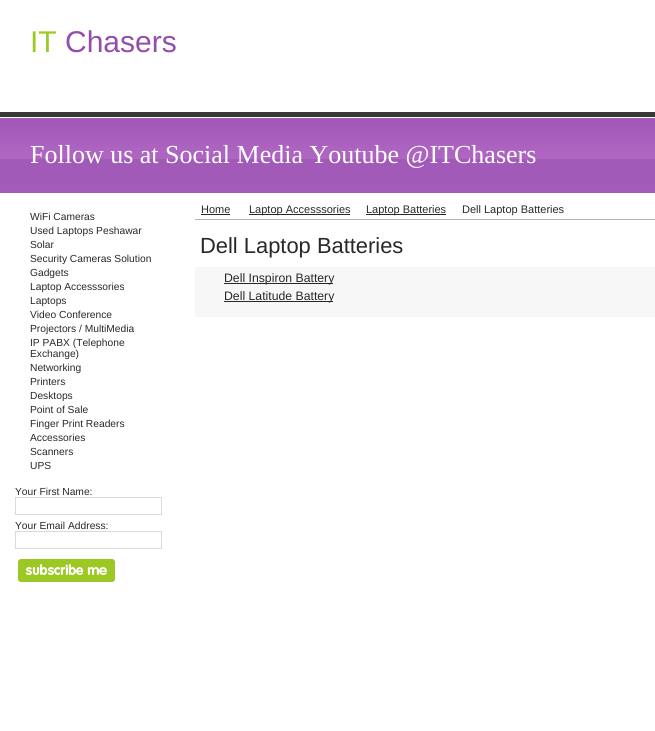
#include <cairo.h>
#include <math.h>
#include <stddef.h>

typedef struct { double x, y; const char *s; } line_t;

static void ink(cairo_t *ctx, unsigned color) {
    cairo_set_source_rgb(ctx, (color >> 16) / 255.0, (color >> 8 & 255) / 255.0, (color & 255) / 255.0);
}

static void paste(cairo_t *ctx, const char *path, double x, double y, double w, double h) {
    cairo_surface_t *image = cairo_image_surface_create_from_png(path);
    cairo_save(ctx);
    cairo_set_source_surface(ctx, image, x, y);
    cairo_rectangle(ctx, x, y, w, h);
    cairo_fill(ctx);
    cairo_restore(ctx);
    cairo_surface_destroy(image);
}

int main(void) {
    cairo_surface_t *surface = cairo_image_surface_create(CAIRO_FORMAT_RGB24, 655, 731);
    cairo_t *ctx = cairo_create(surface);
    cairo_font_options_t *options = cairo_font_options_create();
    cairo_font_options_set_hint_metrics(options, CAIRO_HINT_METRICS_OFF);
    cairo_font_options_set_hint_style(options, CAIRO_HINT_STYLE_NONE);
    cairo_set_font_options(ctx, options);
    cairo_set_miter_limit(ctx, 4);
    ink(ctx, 0xFFFFFF);
    cairo_paint(ctx);
    paste(ctx, "media/1.png", 0, 112, 655, 81);
    cairo_select_font_face(ctx, "Liberation Sans", CAIRO_FONT_SLANT_NORMAL, CAIRO_FONT_WEIGHT_NORMAL);
    cairo_set_font_size(ctx, 30);
    ink(ctx, 0x9ACB24);
    cairo_move_to(ctx, 30, 52);
    cairo_show_text(ctx, "IT");
    ink(ctx, 0x944DAB);
    cairo_move_to(ctx, 65, 52);
    cairo_show_text(ctx, "Chasers");
    cairo_select_font_face(ctx, "Liberation Serif", CAIRO_FONT_SLANT_NORMAL, CAIRO_FONT_WEIGHT_NORMAL);
    cairo_set_font_size(ctx, 26);
    ink(ctx, 0xFFFFFF);
    cairo_move_to(ctx, 30, 163);
    cairo_show_text(ctx, "Follow us at Social Media Youtube @ITChasers");
    cairo_select_font_face(ctx, "Liberation Sans", CAIRO_FONT_SLANT_NORMAL, CAIRO_FONT_WEIGHT_NORMAL);
    cairo_set_font_size(ctx, 10.25);
    ink(ctx, 0x282828);
    {
        static const line_t items[] = {
            {30, 220, "WiFi Cameras"},
            {30, 234, "Used Laptops Peshawar"},
            {30, 248, "Solar"},
            {30, 262, "Security Cameras Solution"},
            {30, 276, "Gadgets"},
            {30, 290, "Laptop Accesssories"},
            {30, 304, "Laptops"},
            {30, 318, "Video Conference"},
            {30, 332, "Projectors / MultiMedia"},
            {30, 346, "IP PABX (Telephone"},
            {30, 357, "Exchange)"},
            {30, 371, "Networking"},
            {30, 385, "Printers"},
            {30, 399, "Desktops"},
            {30, 413, "Point of Sale"},
            {30, 427, "Finger Print Readers"},
            {30, 441, "Accessories"},
            {30, 455, "Scanners"},
            {30, 469, "UPS"},
            {15, 495, "Your First Name:"},
        };
        for (size_t i = 0; i < sizeof items / sizeof *items; i++) {
            cairo_move_to(ctx, items[i].x, items[i].y);
            cairo_show_text(ctx, items[i].s);
        }
    }
    cairo_rectangle(ctx, 15.5, 497.5, 146, 17);
    ink(ctx, 0xDADADA);
    cairo_set_line_width(ctx, 1);
    cairo_stroke(ctx);
    ink(ctx, 0x282828);
    cairo_move_to(ctx, 15, 529);
    cairo_show_text(ctx, "Your Email Address:");
    cairo_rectangle(ctx, 15.5, 531.5, 146, 17);
    ink(ctx, 0xDADADA);
    cairo_stroke(ctx);
    paste(ctx, "media/2.png", 18, 559, 97, 23);
    ink(ctx, 0xB7B7B7);
    cairo_rectangle(ctx, 195, 219, 460, 1);
    cairo_fill(ctx);
    cairo_set_font_size(ctx, 11);
    ink(ctx, 0x282828);
    cairo_move_to(ctx, 201, 213);
    cairo_show_text(ctx, "Home");
    cairo_rectangle(ctx, 201, 214, 29, 1);
    cairo_fill(ctx);
    cairo_rectangle(ctx, 249, 214, 101, 1);
    cairo_fill(ctx);
    cairo_move_to(ctx, 249, 213);
    cairo_show_text(ctx, "Laptop Accesssories");
    cairo_rectangle(ctx, 366, 214, 80, 1);
    cairo_fill(ctx);
    cairo_move_to(ctx, 366, 213);
    cairo_show_text(ctx, "Laptop Batteries");
    cairo_move_to(ctx, 462, 213);
    cairo_show_text(ctx, "Dell Laptop Batteries");
    cairo_set_font_size(ctx, 21.9);
    cairo_move_to(ctx, 200, 253);
    cairo_show_text(ctx, "Dell Laptop Batteries");
    ink(ctx, 0xF7F7F7);
    cairo_rectangle(ctx, 195, 267, 460, 50);
    cairo_fill(ctx);
    ink(ctx, 0x282828);
    cairo_rectangle(ctx, 224, 283, 109, 1);
    cairo_fill(ctx);
    cairo_set_font_size(ctx, 12.25);
    cairo_move_to(ctx, 224, 282);
    cairo_show_text(ctx, "Dell Inspiron Battery");
    cairo_rectangle(ctx, 224, 301, 109, 1);
    cairo_fill(ctx);
    cairo_move_to(ctx, 224, 300);
    cairo_show_text(ctx, "Dell Latitude Battery");
    cairo_surface_write_to_png(surface, "image.png");
    cairo_font_options_destroy(options);
    cairo_destroy(ctx);
    cairo_surface_destroy(surface);
    return 0;
}
